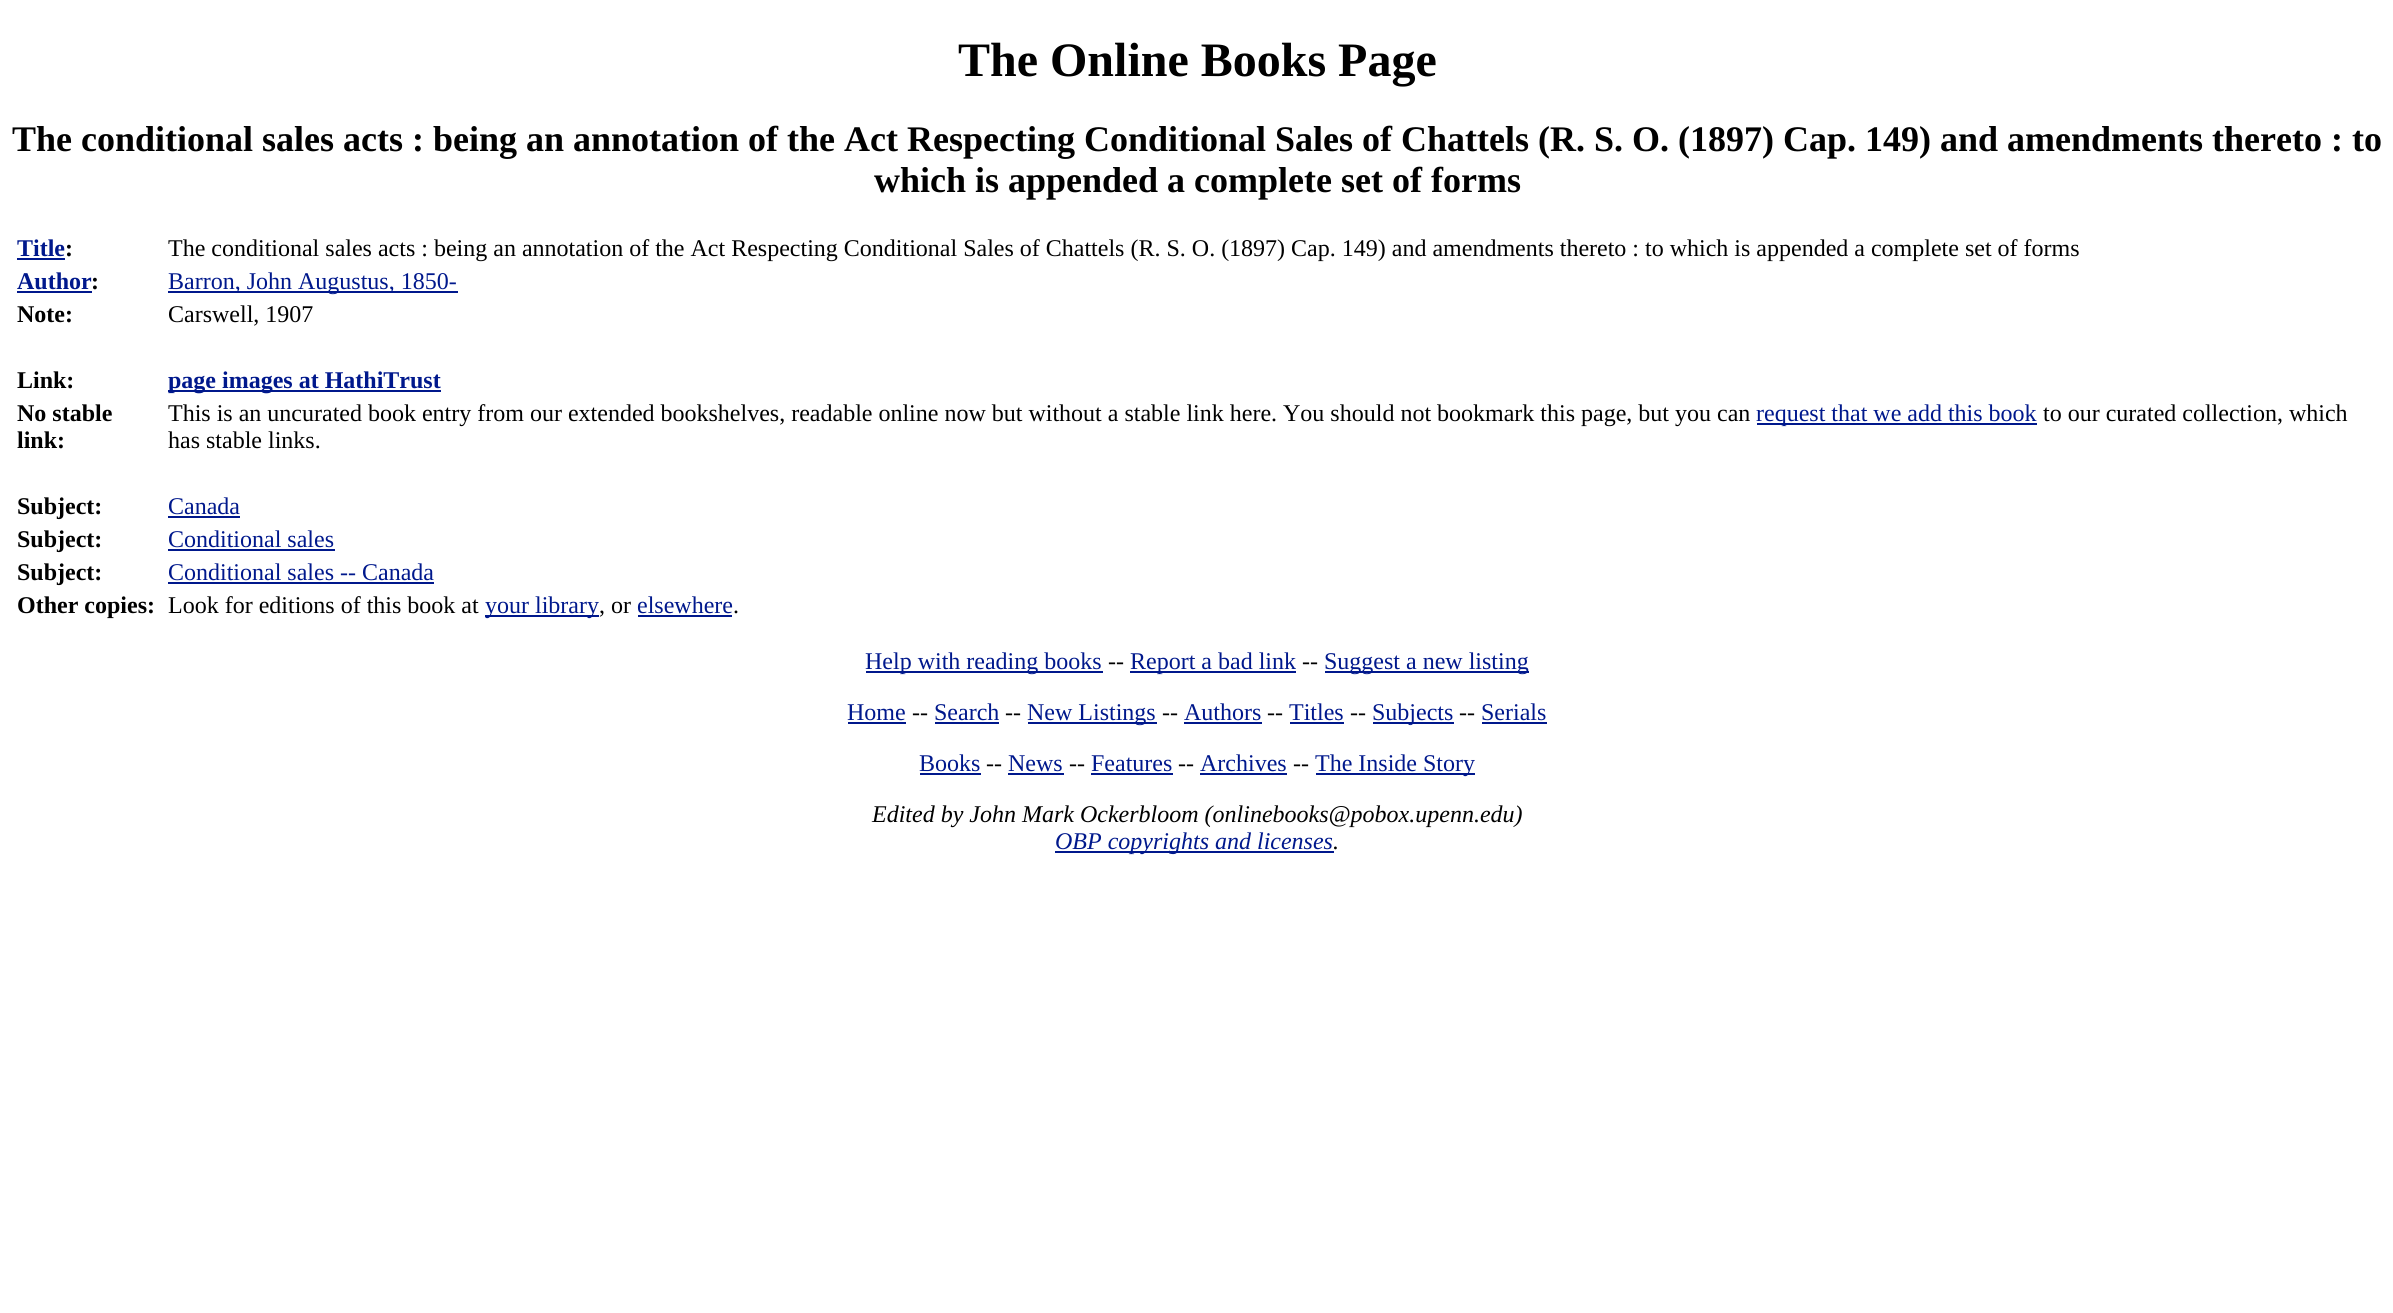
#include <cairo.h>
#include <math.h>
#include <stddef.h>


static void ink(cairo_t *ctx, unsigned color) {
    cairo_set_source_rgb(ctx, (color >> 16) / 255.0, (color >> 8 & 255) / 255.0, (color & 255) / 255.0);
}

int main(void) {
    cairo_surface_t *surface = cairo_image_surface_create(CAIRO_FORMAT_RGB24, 2393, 1313);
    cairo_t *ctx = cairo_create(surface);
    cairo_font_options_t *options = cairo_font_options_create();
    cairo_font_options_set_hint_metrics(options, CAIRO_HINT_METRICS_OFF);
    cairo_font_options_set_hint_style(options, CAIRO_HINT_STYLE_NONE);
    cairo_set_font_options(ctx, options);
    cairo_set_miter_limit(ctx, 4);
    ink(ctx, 0xFFFFFF);
    cairo_paint(ctx);
    cairo_select_font_face(ctx, "Liberation Serif", CAIRO_FONT_SLANT_NORMAL, CAIRO_FONT_WEIGHT_BOLD);
    cairo_set_font_size(ctx, 48);
    ink(ctx, 0x000000);
    cairo_move_to(ctx, 958, 76);
    cairo_show_text(ctx, "The Online Books Page");
    cairo_set_font_size(ctx, 36);
    cairo_move_to(ctx, 12, 151);
    cairo_show_text(ctx, "The conditional sales acts : being an annotation of the Act Respecting Conditional Sales of Chattels (R. S. O. (1897) Cap. 149) and amendments thereto : to");
    cairo_move_to(ctx, 874, 192);
    cairo_show_text(ctx, "which is appended a complete set of forms");
    cairo_set_font_size(ctx, 24);
    ink(ctx, 0x00188C);
    cairo_move_to(ctx, 17, 256);
    cairo_show_text(ctx, "Title");
    ink(ctx, 0x000000);
    cairo_move_to(ctx, 65, 256);
    cairo_show_text(ctx, ":");
    ink(ctx, 0x00188C);
    cairo_rectangle(ctx, 17, 258, 48, 2);
    cairo_fill(ctx);
    cairo_select_font_face(ctx, "Liberation Serif", CAIRO_FONT_SLANT_NORMAL, CAIRO_FONT_WEIGHT_NORMAL);
    ink(ctx, 0x000000);
    cairo_move_to(ctx, 168, 256);
    cairo_show_text(ctx, "The conditional sales acts : being an annotation of the Act Respecting Conditional Sales of Chattels (R. S. O. (1897) Cap. 149) and amendments thereto : to which is appended a complete set of forms");
    cairo_select_font_face(ctx, "Liberation Serif", CAIRO_FONT_SLANT_NORMAL, CAIRO_FONT_WEIGHT_BOLD);
    ink(ctx, 0x00188C);
    cairo_move_to(ctx, 17, 289);
    cairo_show_text(ctx, "Author");
    ink(ctx, 0x000000);
    cairo_move_to(ctx, 91, 289);
    cairo_show_text(ctx, ":");
    ink(ctx, 0x00188C);
    cairo_rectangle(ctx, 17, 291, 75, 2);
    cairo_fill(ctx);
    cairo_rectangle(ctx, 168, 291, 290, 2);
    cairo_fill(ctx);
    cairo_select_font_face(ctx, "Liberation Serif", CAIRO_FONT_SLANT_NORMAL, CAIRO_FONT_WEIGHT_NORMAL);
    cairo_move_to(ctx, 168, 289);
    cairo_show_text(ctx, "Barron, John Augustus, 1850-");
    cairo_select_font_face(ctx, "Liberation Serif", CAIRO_FONT_SLANT_NORMAL, CAIRO_FONT_WEIGHT_BOLD);
    ink(ctx, 0x000000);
    cairo_move_to(ctx, 17, 322);
    cairo_show_text(ctx, "Note:");
    cairo_select_font_face(ctx, "Liberation Serif", CAIRO_FONT_SLANT_NORMAL, CAIRO_FONT_WEIGHT_NORMAL);
    cairo_move_to(ctx, 168, 322);
    cairo_show_text(ctx, "Carswell, 1907");
    cairo_select_font_face(ctx, "Liberation Serif", CAIRO_FONT_SLANT_NORMAL, CAIRO_FONT_WEIGHT_BOLD);
    cairo_move_to(ctx, 17, 388);
    cairo_show_text(ctx, "Link:");
    ink(ctx, 0x00188C);
    cairo_rectangle(ctx, 168, 390, 273, 2);
    cairo_fill(ctx);
    cairo_move_to(ctx, 168, 388);
    cairo_show_text(ctx, "page images at HathiTrust");
    ink(ctx, 0x000000);
    cairo_move_to(ctx, 17, 421);
    cairo_show_text(ctx, "No stable");
    cairo_move_to(ctx, 17, 448);
    cairo_show_text(ctx, "link:");
    cairo_select_font_face(ctx, "Liberation Serif", CAIRO_FONT_SLANT_NORMAL, CAIRO_FONT_WEIGHT_NORMAL);
    cairo_move_to(ctx, 168, 421);
    cairo_show_text(ctx, "This is an uncurated book entry from our extended bookshelves, readable online now but without a stable link here. You should not bookmark this page, but you can");
    ink(ctx, 0x00188C);
    cairo_rectangle(ctx, 1757, 423, 280, 2);
    cairo_fill(ctx);
    cairo_move_to(ctx, 1756, 421);
    cairo_show_text(ctx, "request that we add this book");
    ink(ctx, 0x000000);
    cairo_move_to(ctx, 2043, 421);
    cairo_show_text(ctx, "to our curated collection, which");
    cairo_move_to(ctx, 168, 448);
    cairo_show_text(ctx, "has stable links.");
    cairo_select_font_face(ctx, "Liberation Serif", CAIRO_FONT_SLANT_NORMAL, CAIRO_FONT_WEIGHT_BOLD);
    cairo_move_to(ctx, 17, 514);
    cairo_show_text(ctx, "Subject:");
    cairo_select_font_face(ctx, "Liberation Serif", CAIRO_FONT_SLANT_NORMAL, CAIRO_FONT_WEIGHT_NORMAL);
    ink(ctx, 0x00188C);
    cairo_move_to(ctx, 168, 514);
    cairo_show_text(ctx, "Canada");
    cairo_rectangle(ctx, 168, 516, 72, 2);
    cairo_fill(ctx);
    cairo_select_font_face(ctx, "Liberation Serif", CAIRO_FONT_SLANT_NORMAL, CAIRO_FONT_WEIGHT_BOLD);
    ink(ctx, 0x000000);
    cairo_move_to(ctx, 17, 547);
    cairo_show_text(ctx, "Subject:");
    cairo_select_font_face(ctx, "Liberation Serif", CAIRO_FONT_SLANT_NORMAL, CAIRO_FONT_WEIGHT_NORMAL);
    ink(ctx, 0x00188C);
    cairo_move_to(ctx, 168, 547);
    cairo_show_text(ctx, "Conditional sales");
    cairo_rectangle(ctx, 168, 549, 167, 2);
    cairo_fill(ctx);
    cairo_select_font_face(ctx, "Liberation Serif", CAIRO_FONT_SLANT_NORMAL, CAIRO_FONT_WEIGHT_BOLD);
    ink(ctx, 0x000000);
    cairo_move_to(ctx, 17, 580);
    cairo_show_text(ctx, "Subject:");
    cairo_select_font_face(ctx, "Liberation Serif", CAIRO_FONT_SLANT_NORMAL, CAIRO_FONT_WEIGHT_NORMAL);
    ink(ctx, 0x00188C);
    cairo_move_to(ctx, 168, 580);
    cairo_show_text(ctx, "Conditional sales -- Canada");
    cairo_rectangle(ctx, 168, 582, 266, 2);
    cairo_fill(ctx);
    cairo_select_font_face(ctx, "Liberation Serif", CAIRO_FONT_SLANT_NORMAL, CAIRO_FONT_WEIGHT_BOLD);
    ink(ctx, 0x000000);
    cairo_move_to(ctx, 17, 613);
    cairo_show_text(ctx, "Other copies:");
    cairo_select_font_face(ctx, "Liberation Serif", CAIRO_FONT_SLANT_NORMAL, CAIRO_FONT_WEIGHT_NORMAL);
    cairo_move_to(ctx, 168, 613);
    cairo_show_text(ctx, "Look for editions of this book at");
    ink(ctx, 0x00188C);
    cairo_rectangle(ctx, 485, 615, 114, 2);
    cairo_fill(ctx);
    cairo_move_to(ctx, 485, 613);
    cairo_show_text(ctx, "your library");
    ink(ctx, 0x000000);
    cairo_move_to(ctx, 599, 613);
    cairo_show_text(ctx, ", or");
    ink(ctx, 0x00188C);
    cairo_move_to(ctx, 637, 613);
    cairo_show_text(ctx, "elsewhere");
    cairo_rectangle(ctx, 638, 615, 94, 2);
    cairo_fill(ctx);
    ink(ctx, 0x000000);
    cairo_move_to(ctx, 733, 613);
    cairo_show_text(ctx, ".");
    ink(ctx, 0x00188C);
    cairo_rectangle(ctx, 866, 671, 237, 2);
    cairo_fill(ctx);
    cairo_move_to(ctx, 865, 669);
    cairo_show_text(ctx, "Help with reading books");
    ink(ctx, 0x000000);
    cairo_move_to(ctx, 1108, 669);
    cairo_show_text(ctx, "--");
    ink(ctx, 0x00188C);
    cairo_rectangle(ctx, 1130, 671, 166, 2);
    cairo_fill(ctx);
    cairo_move_to(ctx, 1130, 669);
    cairo_show_text(ctx, "Report a bad link");
    ink(ctx, 0x000000);
    cairo_move_to(ctx, 1302, 669);
    cairo_show_text(ctx, "--");
    ink(ctx, 0x00188C);
    cairo_rectangle(ctx, 1325, 671, 204, 2);
    cairo_fill(ctx);
    cairo_move_to(ctx, 1324, 669);
    cairo_show_text(ctx, "Suggest a new listing");
    cairo_move_to(ctx, 847, 720);
    cairo_show_text(ctx, "Home");
    cairo_rectangle(ctx, 848, 722, 58, 2);
    cairo_fill(ctx);
    ink(ctx, 0x000000);
    cairo_move_to(ctx, 912, 720);
    cairo_show_text(ctx, "--");
    ink(ctx, 0x00188C);
    cairo_move_to(ctx, 934, 720);
    cairo_show_text(ctx, "Search");
    cairo_rectangle(ctx, 935, 722, 64, 2);
    cairo_fill(ctx);
    ink(ctx, 0x000000);
    cairo_move_to(ctx, 1005, 720);
    cairo_show_text(ctx, "--");
    ink(ctx, 0x00188C);
    cairo_rectangle(ctx, 1028, 722, 129, 2);
    cairo_fill(ctx);
    cairo_move_to(ctx, 1027, 720);
    cairo_show_text(ctx, "New Listings");
    ink(ctx, 0x000000);
    cairo_move_to(ctx, 1162, 720);
    cairo_show_text(ctx, "--");
    ink(ctx, 0x00188C);
    cairo_move_to(ctx, 1184, 720);
    cairo_show_text(ctx, "Authors");
    cairo_rectangle(ctx, 1184, 722, 78, 2);
    cairo_fill(ctx);
    ink(ctx, 0x000000);
    cairo_move_to(ctx, 1267, 720);
    cairo_show_text(ctx, "--");
    ink(ctx, 0x00188C);
    cairo_move_to(ctx, 1289, 720);
    cairo_show_text(ctx, "Titles");
    cairo_rectangle(ctx, 1290, 722, 54, 2);
    cairo_fill(ctx);
    ink(ctx, 0x000000);
    cairo_move_to(ctx, 1350, 720);
    cairo_show_text(ctx, "--");
    ink(ctx, 0x00188C);
    cairo_rectangle(ctx, 1373, 722, 81, 2);
    cairo_fill(ctx);
    cairo_move_to(ctx, 1372, 720);
    cairo_show_text(ctx, "Subjects");
    ink(ctx, 0x000000);
    cairo_move_to(ctx, 1459, 720);
    cairo_show_text(ctx, "--");
    ink(ctx, 0x00188C);
    cairo_move_to(ctx, 1481, 720);
    cairo_show_text(ctx, "Serials");
    cairo_rectangle(ctx, 1482, 722, 65, 2);
    cairo_fill(ctx);
    cairo_move_to(ctx, 919, 771);
    cairo_show_text(ctx, "Books");
    cairo_rectangle(ctx, 920, 773, 61, 2);
    cairo_fill(ctx);
    ink(ctx, 0x000000);
    cairo_move_to(ctx, 986, 771);
    cairo_show_text(ctx, "--");
    ink(ctx, 0x00188C);
    cairo_move_to(ctx, 1008, 771);
    cairo_show_text(ctx, "News");
    cairo_rectangle(ctx, 1008, 773, 56, 2);
    cairo_fill(ctx);
    ink(ctx, 0x000000);
    cairo_move_to(ctx, 1069, 771);
    cairo_show_text(ctx, "--");
    ink(ctx, 0x00188C);
    cairo_move_to(ctx, 1091, 771);
    cairo_show_text(ctx, "Features");
    cairo_rectangle(ctx, 1091, 773, 82, 2);
    cairo_fill(ctx);
    ink(ctx, 0x000000);
    cairo_move_to(ctx, 1178, 771);
    cairo_show_text(ctx, "--");
    ink(ctx, 0x00188C);
    cairo_move_to(ctx, 1200, 771);
    cairo_show_text(ctx, "Archives");
    cairo_rectangle(ctx, 1200, 773, 87, 2);
    cairo_fill(ctx);
    ink(ctx, 0x000000);
    cairo_move_to(ctx, 1293, 771);
    cairo_show_text(ctx, "--");
    ink(ctx, 0x00188C);
    cairo_rectangle(ctx, 1316, 773, 159, 2);
    cairo_fill(ctx);
    cairo_move_to(ctx, 1315, 771);
    cairo_show_text(ctx, "The Inside Story");
    cairo_select_font_face(ctx, "Liberation Serif", CAIRO_FONT_SLANT_ITALIC, CAIRO_FONT_WEIGHT_NORMAL);
    ink(ctx, 0x000000);
    cairo_move_to(ctx, 872, 822);
    cairo_show_text(ctx, "Edited by John Mark Ockerbloom (onlinebooks@pobox.upenn.edu)");
    ink(ctx, 0x00188C);
    cairo_rectangle(ctx, 1055, 851, 279, 2);
    cairo_fill(ctx);
    cairo_move_to(ctx, 1055, 849);
    cairo_show_text(ctx, "OBP copyrights and licenses");
    ink(ctx, 0x000000);
    cairo_move_to(ctx, 1333, 849);
    cairo_show_text(ctx, ".");
    cairo_surface_write_to_png(surface, "image.png");
    cairo_font_options_destroy(options);
    cairo_destroy(ctx);
    cairo_surface_destroy(surface);
    return 0;
}
